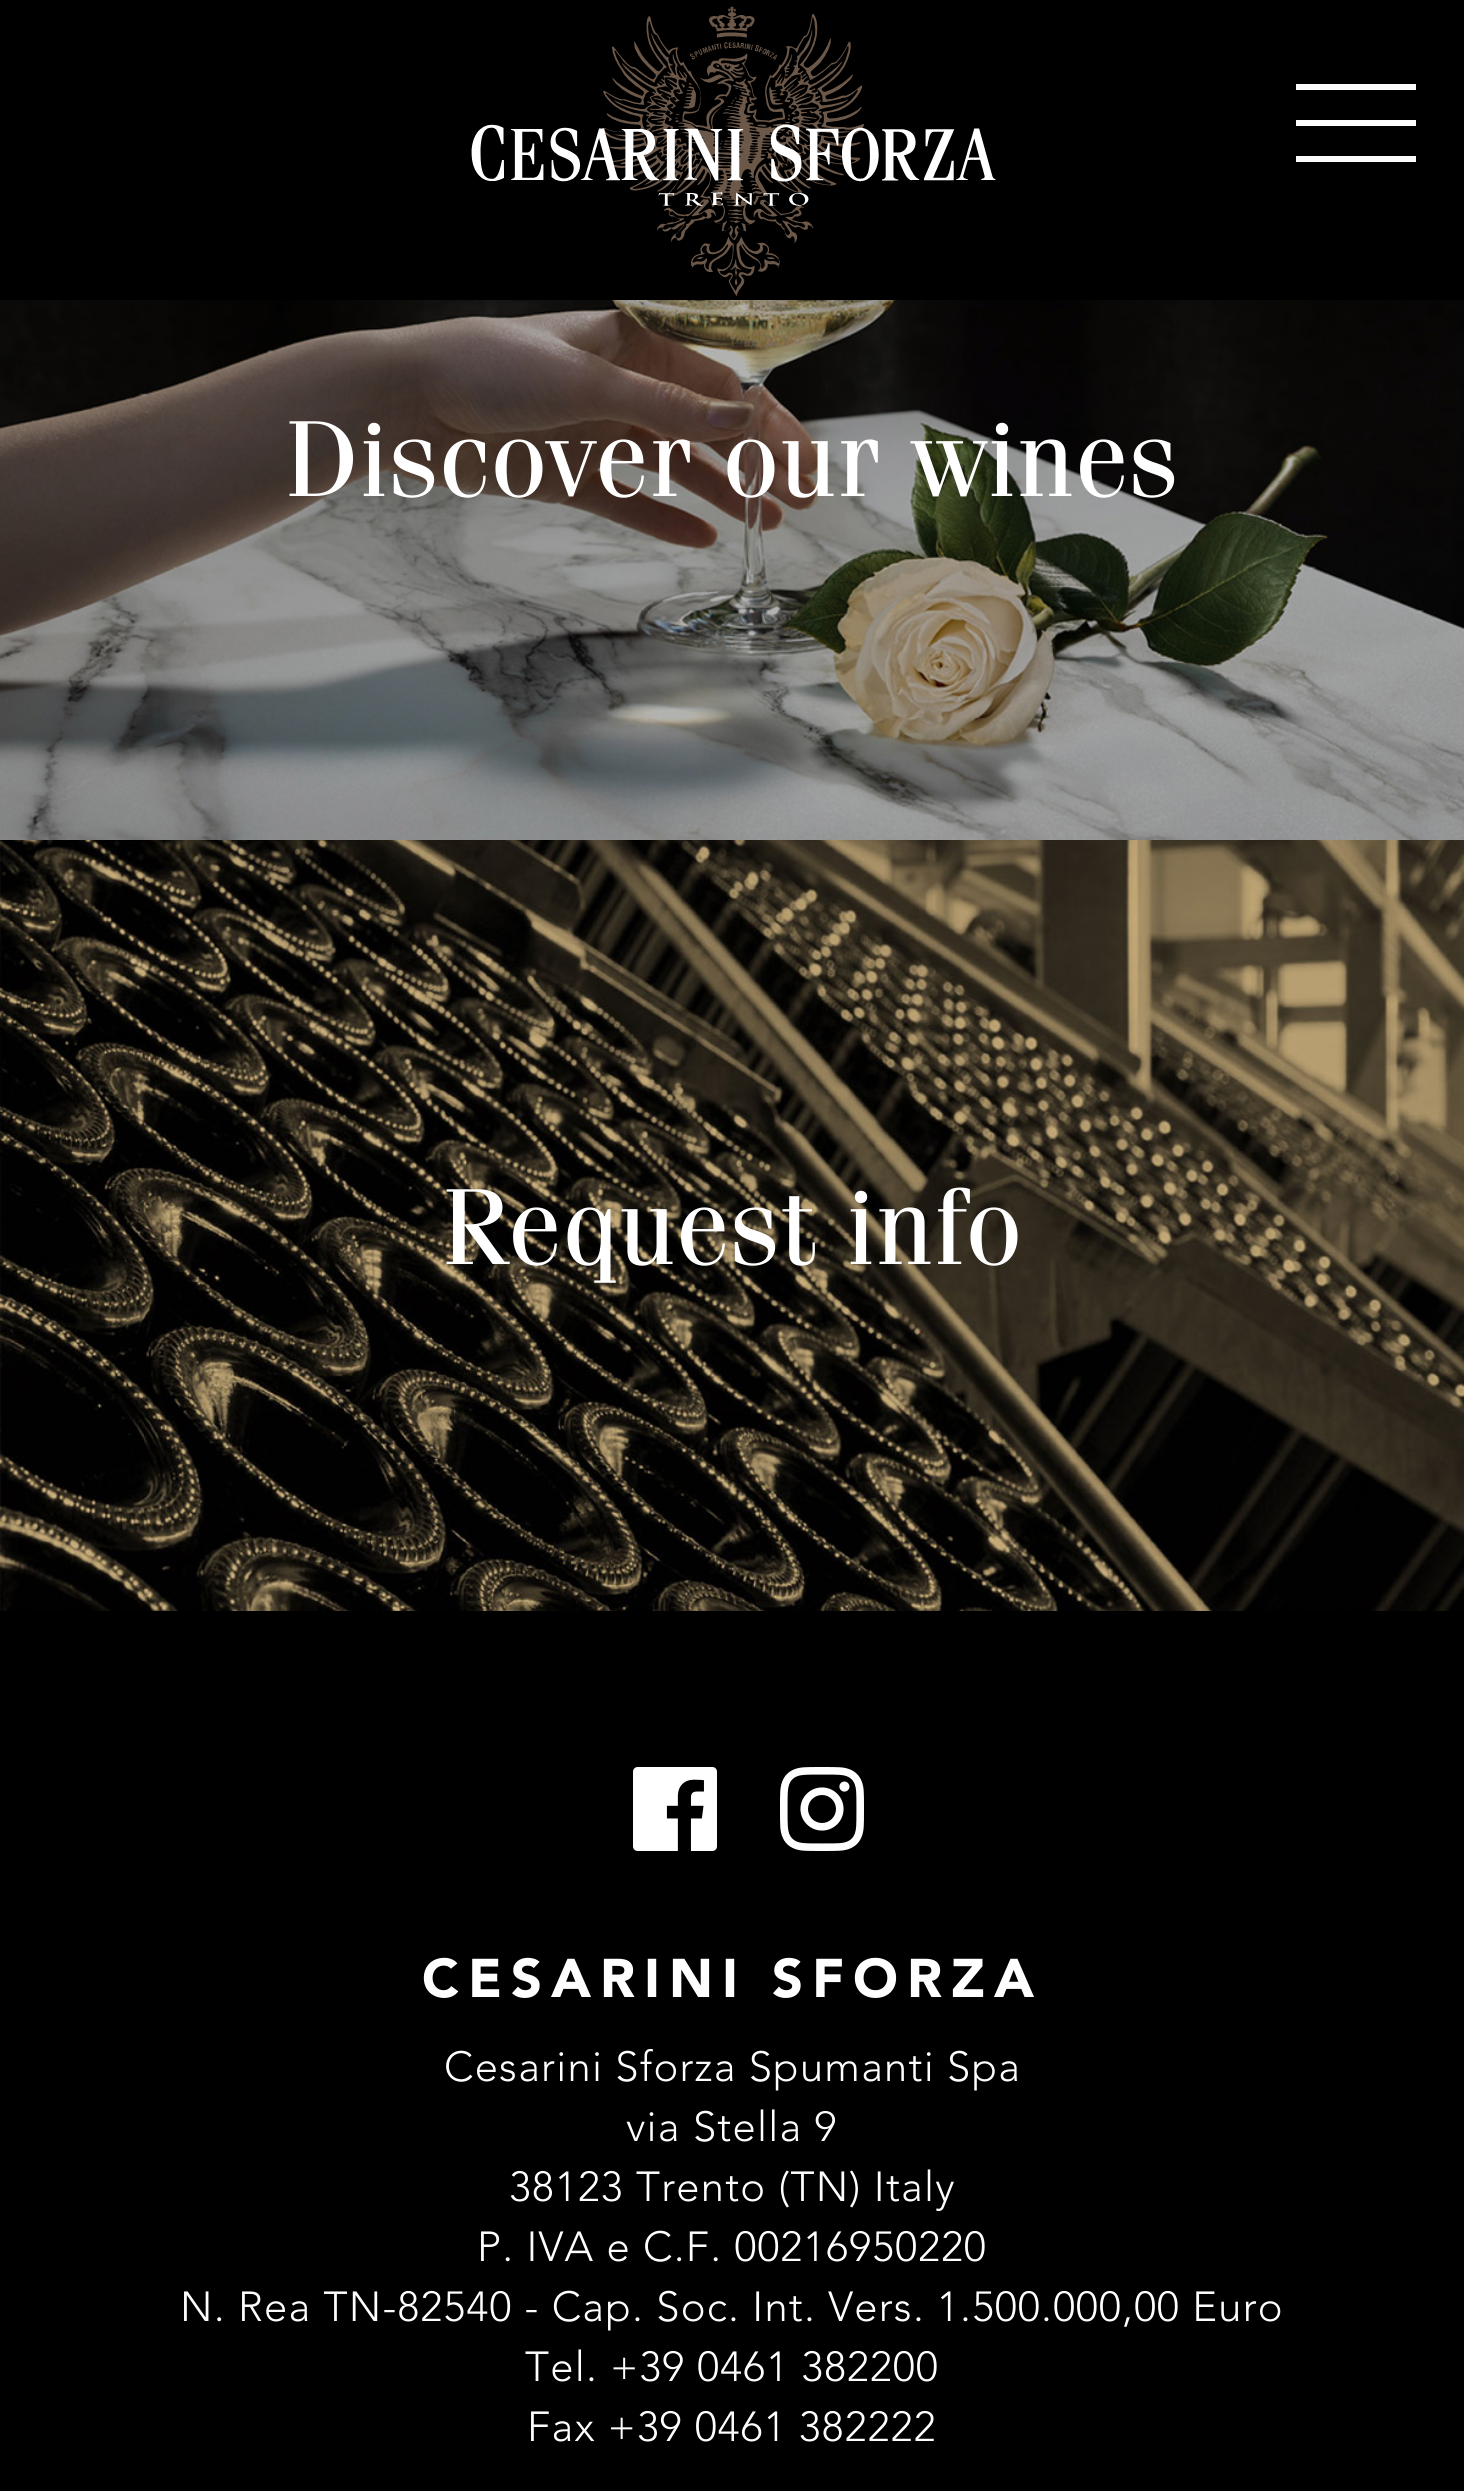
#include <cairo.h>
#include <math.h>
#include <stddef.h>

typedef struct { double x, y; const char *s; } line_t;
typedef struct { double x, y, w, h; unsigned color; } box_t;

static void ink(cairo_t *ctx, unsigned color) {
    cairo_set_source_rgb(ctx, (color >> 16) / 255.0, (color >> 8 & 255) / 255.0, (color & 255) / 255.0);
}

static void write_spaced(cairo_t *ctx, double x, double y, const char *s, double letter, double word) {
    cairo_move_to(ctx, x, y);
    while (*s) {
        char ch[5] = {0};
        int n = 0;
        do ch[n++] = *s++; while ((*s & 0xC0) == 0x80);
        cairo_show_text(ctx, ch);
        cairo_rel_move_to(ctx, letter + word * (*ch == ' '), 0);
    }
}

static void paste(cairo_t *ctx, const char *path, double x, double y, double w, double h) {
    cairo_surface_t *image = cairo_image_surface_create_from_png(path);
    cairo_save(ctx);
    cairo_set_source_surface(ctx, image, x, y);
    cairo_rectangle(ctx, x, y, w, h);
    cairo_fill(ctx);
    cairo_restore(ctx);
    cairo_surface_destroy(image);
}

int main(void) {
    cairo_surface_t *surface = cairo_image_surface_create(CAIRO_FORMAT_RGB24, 1464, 2491);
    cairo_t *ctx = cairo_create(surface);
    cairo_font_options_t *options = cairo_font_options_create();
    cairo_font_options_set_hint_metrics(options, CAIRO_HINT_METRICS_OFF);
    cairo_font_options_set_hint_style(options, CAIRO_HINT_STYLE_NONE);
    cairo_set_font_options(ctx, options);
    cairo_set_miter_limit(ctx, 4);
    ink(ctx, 0xFFFFFF);
    cairo_paint(ctx);
    ink(ctx, 0x000000);
    cairo_rectangle(ctx, 0, 0, 1464, 300);
    cairo_fill(ctx);
    paste(ctx, "media/1.png", 471, 6, 525, 290);
    {
        static const box_t items[] = {
            {1296, 120, 120, 6, 0xFCFCFC},
            {1296, 84, 120, 6, 0xFCFCFC},
            {1296, 156, 120, 6, 0xFCFCFC},
        };
        for (size_t i = 0; i < sizeof items / sizeof *items; i++) {
            ink(ctx, items[i].color);
            cairo_rectangle(ctx, items[i].x, items[i].y, items[i].w, items[i].h);
            cairo_fill(ctx);
        }
    }
    paste(ctx, "media/2.png", 0, 300, 1464, 540);
    cairo_select_font_face(ctx, "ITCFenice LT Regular", CAIRO_FONT_SLANT_NORMAL, CAIRO_FONT_WEIGHT_NORMAL);
    cairo_set_font_size(ctx, 108);
    ink(ctx, 0xFFFFFF);
    cairo_move_to(ctx, 285, 496);
    cairo_show_text(ctx, "Discover our wines");
    paste(ctx, "media/3.png", 0, 840, 1464, 771);
    cairo_move_to(ctx, 442, 1264);
    cairo_show_text(ctx, "Request info");
    ink(ctx, 0x000000);
    cairo_rectangle(ctx, 0, 1611, 1464, 880);
    cairo_fill(ctx);
    paste(ctx, "media/4.png", 633, 1767, 84, 84);
    paste(ctx, "media/5.png", 780, 1767, 84, 84);
    cairo_select_font_face(ctx, "Avenir Black", CAIRO_FONT_SLANT_NORMAL, CAIRO_FONT_WEIGHT_NORMAL);
    cairo_set_font_size(ctx, 54);
    ink(ctx, 0xFFFFFF);
    write_spaced(ctx, 422, 1997, "CESARINI SFORZA", 9, 0);
    cairo_select_font_face(ctx, "Avenir Light", CAIRO_FONT_SLANT_NORMAL, CAIRO_FONT_WEIGHT_NORMAL);
    cairo_set_font_size(ctx, 41.75);
    {
        static const line_t items[] = {
            {444, 2081, "Cesarini Sforza Spumanti Spa"},
            {626, 2141, "via Stella 9"},
            {509, 2201, "38123 Trento (TN) Italy"},
            {477, 2261, "P. IVA e C.F. 00216950220"},
            {180, 2321, "N. Rea TN-82540 - Cap. Soc. Int. Vers. 1.500.000,00 Euro"},
            {525, 2381, "Tel. +39 0461 382200"},
            {527, 2441, "Fax +39 0461 382222"},
        };
        for (size_t i = 0; i < sizeof items / sizeof *items; i++) {
            write_spaced(ctx, items[i].x, items[i].y, items[i].s, 1.25, 0);
        }
    }
    cairo_surface_write_to_png(surface, "image.png");
    cairo_font_options_destroy(options);
    cairo_destroy(ctx);
    cairo_surface_destroy(surface);
    return 0;
}
